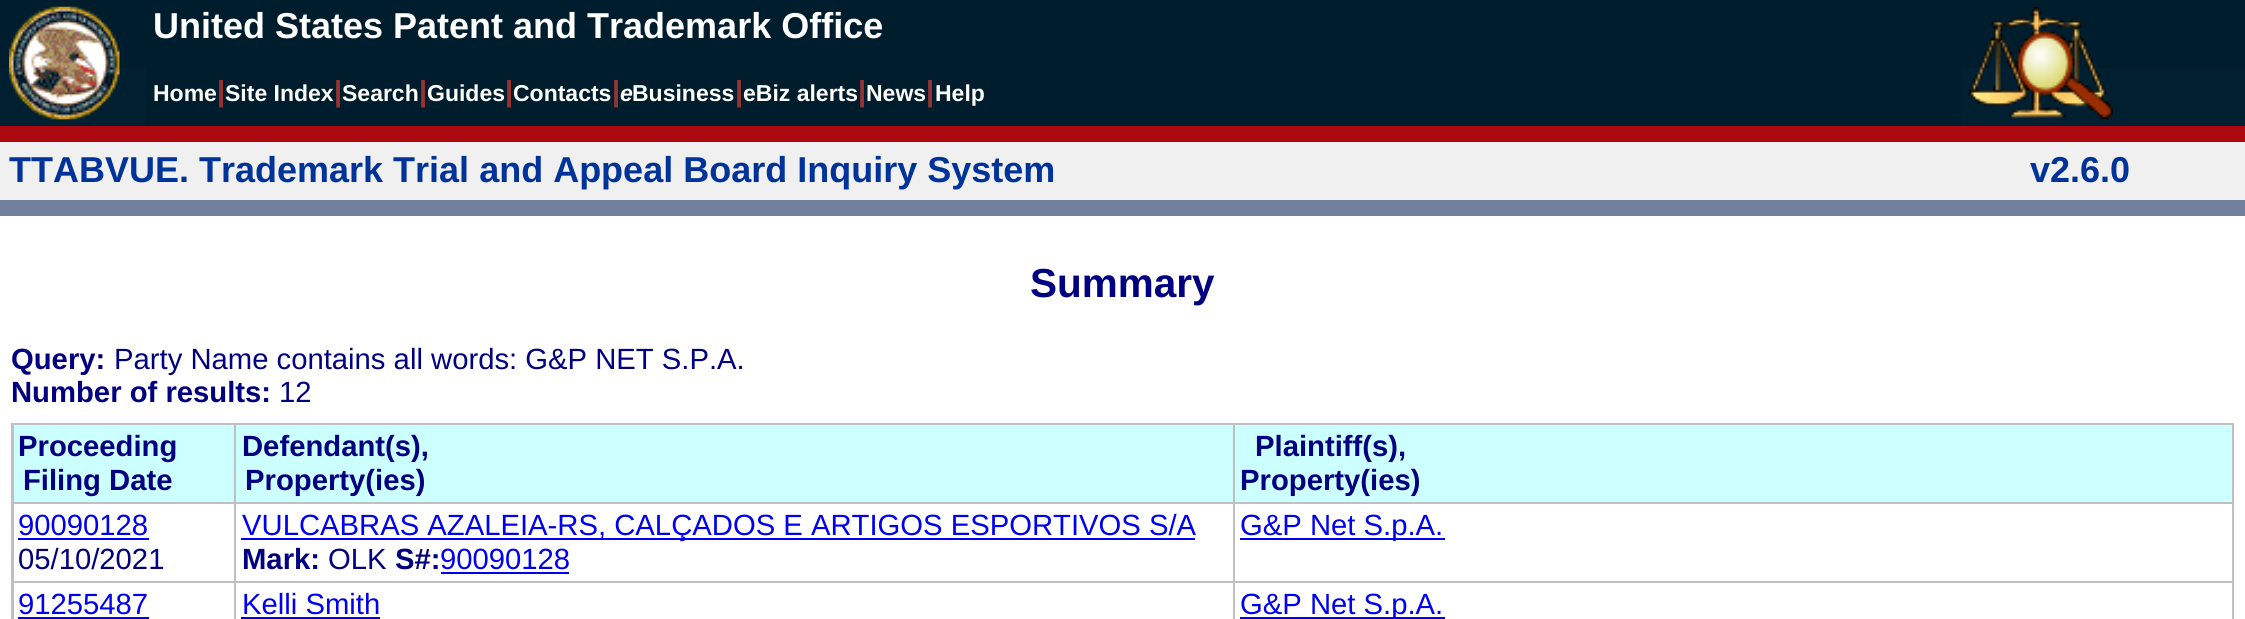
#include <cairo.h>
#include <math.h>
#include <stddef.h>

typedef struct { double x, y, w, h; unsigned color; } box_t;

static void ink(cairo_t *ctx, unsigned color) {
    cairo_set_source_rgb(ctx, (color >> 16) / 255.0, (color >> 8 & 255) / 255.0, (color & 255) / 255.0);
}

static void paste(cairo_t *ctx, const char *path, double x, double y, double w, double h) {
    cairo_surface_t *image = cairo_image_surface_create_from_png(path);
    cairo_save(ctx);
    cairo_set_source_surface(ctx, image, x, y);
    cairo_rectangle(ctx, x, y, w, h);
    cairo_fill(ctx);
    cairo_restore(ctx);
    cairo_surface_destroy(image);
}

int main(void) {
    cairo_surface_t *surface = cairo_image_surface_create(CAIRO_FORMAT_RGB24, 2245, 619);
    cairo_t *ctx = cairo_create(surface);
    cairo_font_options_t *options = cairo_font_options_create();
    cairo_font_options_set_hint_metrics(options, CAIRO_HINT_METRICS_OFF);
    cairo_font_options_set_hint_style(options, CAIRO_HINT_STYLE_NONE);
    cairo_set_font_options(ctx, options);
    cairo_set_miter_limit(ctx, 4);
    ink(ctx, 0xFFFFFF);
    cairo_paint(ctx);
    ink(ctx, 0x001D2D);
    cairo_rectangle(ctx, 0, 0, 2245, 68);
    cairo_fill(ctx);
    ink(ctx, 0x002032);
    cairo_rectangle(ctx, 0, 68, 2245, 58);
    cairo_fill(ctx);
    paste(ctx, "media/1.png", 9, 6, 111, 114);
    cairo_select_font_face(ctx, "Liberation Sans", CAIRO_FONT_SLANT_NORMAL, CAIRO_FONT_WEIGHT_BOLD);
    cairo_set_font_size(ctx, 36);
    ink(ctx, 0xFFFFFF);
    cairo_move_to(ctx, 153, 38);
    cairo_show_text(ctx, "United States Patent and Trademark Office");
    paste(ctx, "media/2.png", 1968, 6, 145, 114);
    ink(ctx, 0x001D2D);
    cairo_rectangle(ctx, 146, 68, 1816, 58);
    cairo_fill(ctx);
    cairo_set_font_size(ctx, 23);
    ink(ctx, 0xFFFFFF);
    cairo_move_to(ctx, 153, 101);
    cairo_show_text(ctx, "Home");
    cairo_set_font_size(ctx, 29);
    ink(ctx, 0x993333);
    cairo_move_to(ctx, 217, 101);
    cairo_show_text(ctx, "|");
    cairo_set_font_size(ctx, 23);
    ink(ctx, 0xFFFFFF);
    cairo_move_to(ctx, 225, 101);
    cairo_show_text(ctx, "Site Index");
    cairo_set_font_size(ctx, 29);
    ink(ctx, 0x993333);
    cairo_move_to(ctx, 334, 101);
    cairo_show_text(ctx, "|");
    cairo_set_font_size(ctx, 23);
    ink(ctx, 0xFFFFFF);
    cairo_move_to(ctx, 342, 101);
    cairo_show_text(ctx, "Search");
    cairo_set_font_size(ctx, 29);
    ink(ctx, 0x993333);
    cairo_move_to(ctx, 419, 101);
    cairo_show_text(ctx, "|");
    cairo_set_font_size(ctx, 23);
    ink(ctx, 0xFFFFFF);
    cairo_move_to(ctx, 427, 101);
    cairo_show_text(ctx, "Guides");
    cairo_set_font_size(ctx, 29);
    ink(ctx, 0x993333);
    cairo_move_to(ctx, 505, 101);
    cairo_show_text(ctx, "|");
    cairo_set_font_size(ctx, 23);
    ink(ctx, 0xFFFFFF);
    cairo_move_to(ctx, 513, 101);
    cairo_show_text(ctx, "Contacts");
    cairo_set_font_size(ctx, 29);
    ink(ctx, 0x993333);
    cairo_move_to(ctx, 612, 101);
    cairo_show_text(ctx, "|");
    cairo_select_font_face(ctx, "Liberation Sans", CAIRO_FONT_SLANT_ITALIC, CAIRO_FONT_WEIGHT_BOLD);
    cairo_set_font_size(ctx, 23);
    ink(ctx, 0xFFFFFF);
    cairo_move_to(ctx, 620, 101);
    cairo_show_text(ctx, "e");
    cairo_select_font_face(ctx, "Liberation Sans", CAIRO_FONT_SLANT_NORMAL, CAIRO_FONT_WEIGHT_BOLD);
    cairo_move_to(ctx, 632, 101);
    cairo_show_text(ctx, "Business");
    cairo_set_font_size(ctx, 29);
    ink(ctx, 0x993333);
    cairo_move_to(ctx, 735, 101);
    cairo_show_text(ctx, "|");
    cairo_set_font_size(ctx, 23);
    ink(ctx, 0xFFFFFF);
    cairo_move_to(ctx, 743, 101);
    cairo_show_text(ctx, "eBiz alerts");
    cairo_set_font_size(ctx, 29);
    ink(ctx, 0x993333);
    cairo_move_to(ctx, 858, 101);
    cairo_show_text(ctx, "|");
    cairo_set_font_size(ctx, 23);
    ink(ctx, 0xFFFFFF);
    cairo_move_to(ctx, 866, 101);
    cairo_show_text(ctx, "News");
    cairo_set_font_size(ctx, 29);
    ink(ctx, 0x993333);
    cairo_move_to(ctx, 926, 101);
    cairo_show_text(ctx, "|");
    cairo_set_font_size(ctx, 23);
    ink(ctx, 0xFFFFFF);
    cairo_move_to(ctx, 935, 101);
    cairo_show_text(ctx, "Help");
    ink(ctx, 0xAC0911);
    cairo_rectangle(ctx, 0, 126, 2245, 16);
    cairo_fill(ctx);
    ink(ctx, 0xF0F0F0);
    cairo_rectangle(ctx, 0, 142, 2245, 58);
    cairo_fill(ctx);
    cairo_set_font_size(ctx, 36);
    ink(ctx, 0x003399);
    cairo_move_to(ctx, 9, 182);
    cairo_show_text(ctx, "TTABVUE. Trademark Trial and Appeal Board Inquiry System");
    cairo_move_to(ctx, 2030, 182);
    cairo_show_text(ctx, "v2.6.0");
    ink(ctx, 0x71819B);
    cairo_rectangle(ctx, 0, 200, 2245, 16);
    cairo_fill(ctx);
    cairo_set_font_size(ctx, 40.5);
    ink(ctx, 0x000080);
    cairo_move_to(ctx, 1030, 297);
    cairo_show_text(ctx, "Summary");
    cairo_set_font_size(ctx, 29.25);
    cairo_move_to(ctx, 11, 369);
    cairo_show_text(ctx, "Query:");
    cairo_select_font_face(ctx, "Liberation Sans", CAIRO_FONT_SLANT_NORMAL, CAIRO_FONT_WEIGHT_NORMAL);
    cairo_move_to(ctx, 114, 369);
    cairo_show_text(ctx, "Party Name contains all words: G&P NET S.P.A.");
    cairo_select_font_face(ctx, "Liberation Sans", CAIRO_FONT_SLANT_NORMAL, CAIRO_FONT_WEIGHT_BOLD);
    cairo_move_to(ctx, 11, 402);
    cairo_show_text(ctx, "Number of results:");
    cairo_select_font_face(ctx, "Liberation Sans", CAIRO_FONT_SLANT_NORMAL, CAIRO_FONT_WEIGHT_NORMAL);
    cairo_move_to(ctx, 279, 402);
    cairo_show_text(ctx, "12");
    ink(ctx, 0xC0C0C0);
    cairo_rectangle(ctx, 11, 423, 2223, 196);
    cairo_fill(ctx);
    ink(ctx, 0xCCFFFF);
    cairo_rectangle(ctx, 14, 425, 220, 77);
    cairo_fill(ctx);
    cairo_select_font_face(ctx, "Liberation Sans", CAIRO_FONT_SLANT_NORMAL, CAIRO_FONT_WEIGHT_BOLD);
    ink(ctx, 0x000080);
    cairo_move_to(ctx, 18, 456);
    cairo_show_text(ctx, "Proceeding");
    cairo_move_to(ctx, 23, 490);
    cairo_show_text(ctx, "Filing Date");
    ink(ctx, 0xCCFFFF);
    cairo_rectangle(ctx, 236, 425, 997, 77);
    cairo_fill(ctx);
    ink(ctx, 0x000080);
    cairo_move_to(ctx, 242, 456);
    cairo_show_text(ctx, "Defendant(s),");
    cairo_move_to(ctx, 245, 490);
    cairo_show_text(ctx, "Property(ies)");
    ink(ctx, 0xCCFFFF);
    cairo_rectangle(ctx, 1235, 425, 997, 77);
    cairo_fill(ctx);
    ink(ctx, 0x000080);
    cairo_move_to(ctx, 1255, 456);
    cairo_show_text(ctx, "Plaintiff(s),");
    cairo_move_to(ctx, 1240, 490);
    cairo_show_text(ctx, "Property(ies)");
    ink(ctx, 0xFFFFFF);
    cairo_rectangle(ctx, 14, 504, 220, 77);
    cairo_fill(ctx);
    cairo_select_font_face(ctx, "Liberation Sans", CAIRO_FONT_SLANT_NORMAL, CAIRO_FONT_WEIGHT_NORMAL);
    ink(ctx, 0x0000EE);
    cairo_move_to(ctx, 18, 535);
    cairo_show_text(ctx, "90090128");
    cairo_rectangle(ctx, 18, 538, 131, 2);
    cairo_fill(ctx);
    ink(ctx, 0x000080);
    cairo_move_to(ctx, 18, 569);
    cairo_show_text(ctx, "05/10/2021");
    ink(ctx, 0xFFFFFF);
    cairo_rectangle(ctx, 236, 504, 997, 77);
    cairo_fill(ctx);
    ink(ctx, 0x0000EE);
    cairo_rectangle(ctx, 241, 538, 954, 2);
    cairo_fill(ctx);
    cairo_move_to(ctx, 242, 535);
    cairo_show_text(ctx, "VULCABRAS AZALEIA-RS, CALÇADOS E ARTIGOS ESPORTIVOS S/A");
    cairo_select_font_face(ctx, "Liberation Sans", CAIRO_FONT_SLANT_NORMAL, CAIRO_FONT_WEIGHT_BOLD);
    ink(ctx, 0x000080);
    cairo_move_to(ctx, 242, 569);
    cairo_show_text(ctx, "Mark:");
    cairo_select_font_face(ctx, "Liberation Sans", CAIRO_FONT_SLANT_NORMAL, CAIRO_FONT_WEIGHT_NORMAL);
    cairo_move_to(ctx, 328, 569);
    cairo_show_text(ctx, "OLK");
    cairo_select_font_face(ctx, "Liberation Sans", CAIRO_FONT_SLANT_NORMAL, CAIRO_FONT_WEIGHT_BOLD);
    cairo_move_to(ctx, 395, 569);
    cairo_show_text(ctx, "S#:");
    cairo_select_font_face(ctx, "Liberation Sans", CAIRO_FONT_SLANT_NORMAL, CAIRO_FONT_WEIGHT_NORMAL);
    ink(ctx, 0x0000EE);
    cairo_move_to(ctx, 440, 569);
    cairo_show_text(ctx, "90090128");
    {
        static const box_t items[] = {
            {441, 572, 128, 2, 0x0000EE},
            {1235, 504, 997, 77, 0xFFFFFF},
            {1240, 538, 205, 2, 0x0000EE},
        };
        for (size_t i = 0; i < sizeof items / sizeof *items; i++) {
            ink(ctx, items[i].color);
            cairo_rectangle(ctx, items[i].x, items[i].y, items[i].w, items[i].h);
            cairo_fill(ctx);
        }
    }
    cairo_move_to(ctx, 1240, 535);
    cairo_show_text(ctx, "G&P Net S.p.A.");
    ink(ctx, 0xFFFFFF);
    cairo_rectangle(ctx, 14, 583, 220, 36);
    cairo_fill(ctx);
    ink(ctx, 0x0000EE);
    cairo_move_to(ctx, 18, 614);
    cairo_show_text(ctx, "91255487");
    cairo_rectangle(ctx, 18, 617, 131, 2);
    cairo_fill(ctx);
    ink(ctx, 0xFFFFFF);
    cairo_rectangle(ctx, 236, 583, 997, 36);
    cairo_fill(ctx);
    ink(ctx, 0x0000EE);
    cairo_move_to(ctx, 242, 614);
    cairo_show_text(ctx, "Kelli Smith");
    {
        static const box_t items[] = {
            {241, 617, 139, 2, 0x0000EE},
            {1235, 583, 997, 36, 0xFFFFFF},
            {1240, 617, 205, 2, 0x0000EE},
        };
        for (size_t i = 0; i < sizeof items / sizeof *items; i++) {
            ink(ctx, items[i].color);
            cairo_rectangle(ctx, items[i].x, items[i].y, items[i].w, items[i].h);
            cairo_fill(ctx);
        }
    }
    cairo_move_to(ctx, 1240, 614);
    cairo_show_text(ctx, "G&P Net S.p.A.");
    cairo_surface_write_to_png(surface, "image.png");
    cairo_font_options_destroy(options);
    cairo_destroy(ctx);
    cairo_surface_destroy(surface);
    return 0;
}
